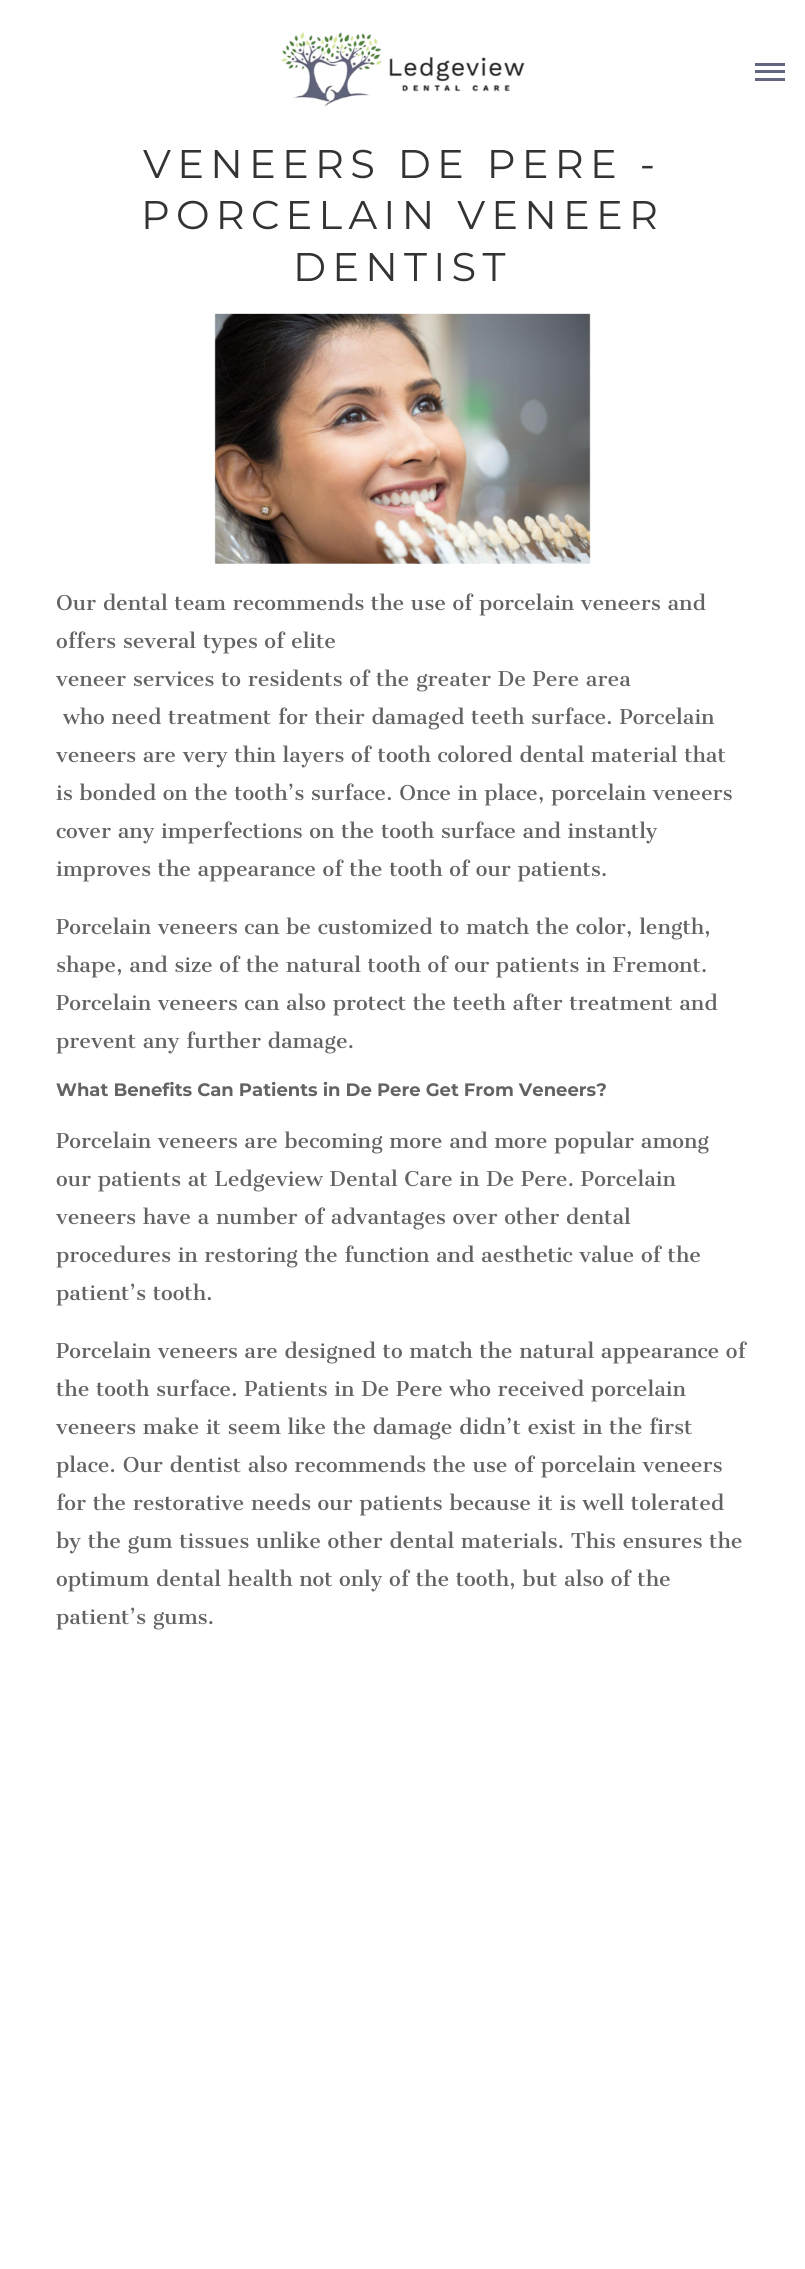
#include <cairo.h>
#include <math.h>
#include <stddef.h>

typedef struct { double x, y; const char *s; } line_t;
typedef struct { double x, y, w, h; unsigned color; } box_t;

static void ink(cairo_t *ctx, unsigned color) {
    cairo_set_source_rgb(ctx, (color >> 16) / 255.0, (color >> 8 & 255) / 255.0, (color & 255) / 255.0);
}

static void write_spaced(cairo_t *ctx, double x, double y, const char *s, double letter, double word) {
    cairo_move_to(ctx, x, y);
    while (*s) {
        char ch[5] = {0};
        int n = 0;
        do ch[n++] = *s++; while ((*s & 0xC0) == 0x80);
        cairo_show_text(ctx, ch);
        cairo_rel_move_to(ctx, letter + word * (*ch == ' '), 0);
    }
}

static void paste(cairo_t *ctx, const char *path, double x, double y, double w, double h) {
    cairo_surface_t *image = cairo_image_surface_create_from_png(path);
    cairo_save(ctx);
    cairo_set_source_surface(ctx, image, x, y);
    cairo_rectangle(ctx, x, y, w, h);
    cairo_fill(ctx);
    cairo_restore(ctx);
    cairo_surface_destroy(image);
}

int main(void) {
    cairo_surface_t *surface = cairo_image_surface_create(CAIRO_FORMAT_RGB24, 805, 2269);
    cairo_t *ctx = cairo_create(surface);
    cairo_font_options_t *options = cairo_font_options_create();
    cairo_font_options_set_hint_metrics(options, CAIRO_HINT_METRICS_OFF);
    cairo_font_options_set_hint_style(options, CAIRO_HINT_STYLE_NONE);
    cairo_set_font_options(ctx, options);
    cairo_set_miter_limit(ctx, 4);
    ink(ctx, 0xFFFFFF);
    cairo_paint(ctx);
    paste(ctx, "media/1.png", 281, 32, 244, 75);
    {
        static const box_t items[] = {
            {755, 70, 30, 3, 0x61667E},
            {755, 63, 30, 3, 0x61667E},
            {755, 78, 30, 3, 0x61667E},
        };
        for (size_t i = 0; i < sizeof items / sizeof *items; i++) {
            ink(ctx, items[i].color);
            cairo_rectangle(ctx, items[i].x, items[i].y, items[i].w, items[i].h);
            cairo_fill(ctx);
        }
    }
    cairo_select_font_face(ctx, "Montserrat", CAIRO_FONT_SLANT_NORMAL, CAIRO_FONT_WEIGHT_NORMAL);
    cairo_set_font_size(ctx, 40);
    ink(ctx, 0x333333);
    {
        static const line_t items[] = {
            {143, 178, "VENEERS DE PERE -"},
            {141, 229, "PORCELAIN VENEER"},
            {293, 281, "DENTIST"},
        };
        for (size_t i = 0; i < sizeof items / sizeof *items; i++) {
            write_spaced(ctx, items[i].x, items[i].y, items[i].s, 6.25, 0);
        }
    }
    paste(ctx, "media/2.png", 214, 313, 377, 251);
    cairo_select_font_face(ctx, "Cantata One", CAIRO_FONT_SLANT_NORMAL, CAIRO_FONT_WEIGHT_NORMAL);
    cairo_set_font_size(ctx, 20);
    ink(ctx, 0x636363);
    {
        static const line_t items[] = {
            {56, 610, "Our dental team recommends the use of porcelain veneers and"},
            {56, 648, "offers several types of elite"},
            {56, 686, "veneer services to residents of the greater De Pere area"},
            {63, 724, "who need treatment for their damaged teeth surface. Porcelain"},
            {56, 762, "veneers are very thin layers of tooth colored dental material that"},
            {56, 800, "is bonded on the tooth’s surface. Once in place, porcelain veneers"},
            {56, 838, "cover any imperfections on the tooth surface and instantly"},
            {56, 876, "improves the appearance of the tooth of our patients."},
            {56, 934, "Porcelain veneers can be customized to match the color, length,"},
            {56, 972, "shape, and size of the natural tooth of our patients in Fremont."},
            {56, 1010, "Porcelain veneers can also protect the teeth after treatment and"},
            {56, 1048, "prevent any further damage."},
        };
        for (size_t i = 0; i < sizeof items / sizeof *items; i++) {
            cairo_move_to(ctx, items[i].x, items[i].y);
            cairo_show_text(ctx, items[i].s);
        }
    }
    cairo_select_font_face(ctx, "Montserrat", CAIRO_FONT_SLANT_NORMAL, CAIRO_FONT_WEIGHT_BOLD);
    cairo_set_font_size(ctx, 18);
    cairo_move_to(ctx, 56, 1096);
    cairo_show_text(ctx, "What Benefits Can Patients in De Pere Get From Veneers?");
    cairo_select_font_face(ctx, "Cantata One", CAIRO_FONT_SLANT_NORMAL, CAIRO_FONT_WEIGHT_NORMAL);
    cairo_set_font_size(ctx, 20);
    {
        static const line_t items[] = {
            {56, 1148, "Porcelain veneers are becoming more and more popular among"},
            {56, 1186, "our patients at Ledgeview Dental Care in De Pere. Porcelain"},
            {56, 1224, "veneers have a number of advantages over other dental"},
            {56, 1262, "procedures in restoring the function and aesthetic value of the"},
            {56, 1300, "patient’s tooth."},
            {56, 1358, "Porcelain veneers are designed to match the natural appearance of"},
            {56, 1396, "the tooth surface. Patients in De Pere who received porcelain"},
            {56, 1434, "veneers make it seem like the damage didn’t exist in the first"},
            {56, 1472, "place. Our dentist also recommends the use of porcelain veneers"},
            {56, 1510, "for the restorative needs our patients because it is well tolerated"},
            {56, 1548, "by the gum tissues unlike other dental materials. This ensures the"},
            {56, 1586, "optimum dental health not only of the tooth, but also of the"},
            {56, 1624, "patient’s gums."},
        };
        for (size_t i = 0; i < sizeof items / sizeof *items; i++) {
            cairo_move_to(ctx, items[i].x, items[i].y);
            cairo_show_text(ctx, items[i].s);
        }
    }
    cairo_surface_write_to_png(surface, "image.png");
    cairo_font_options_destroy(options);
    cairo_destroy(ctx);
    cairo_surface_destroy(surface);
    return 0;
}
